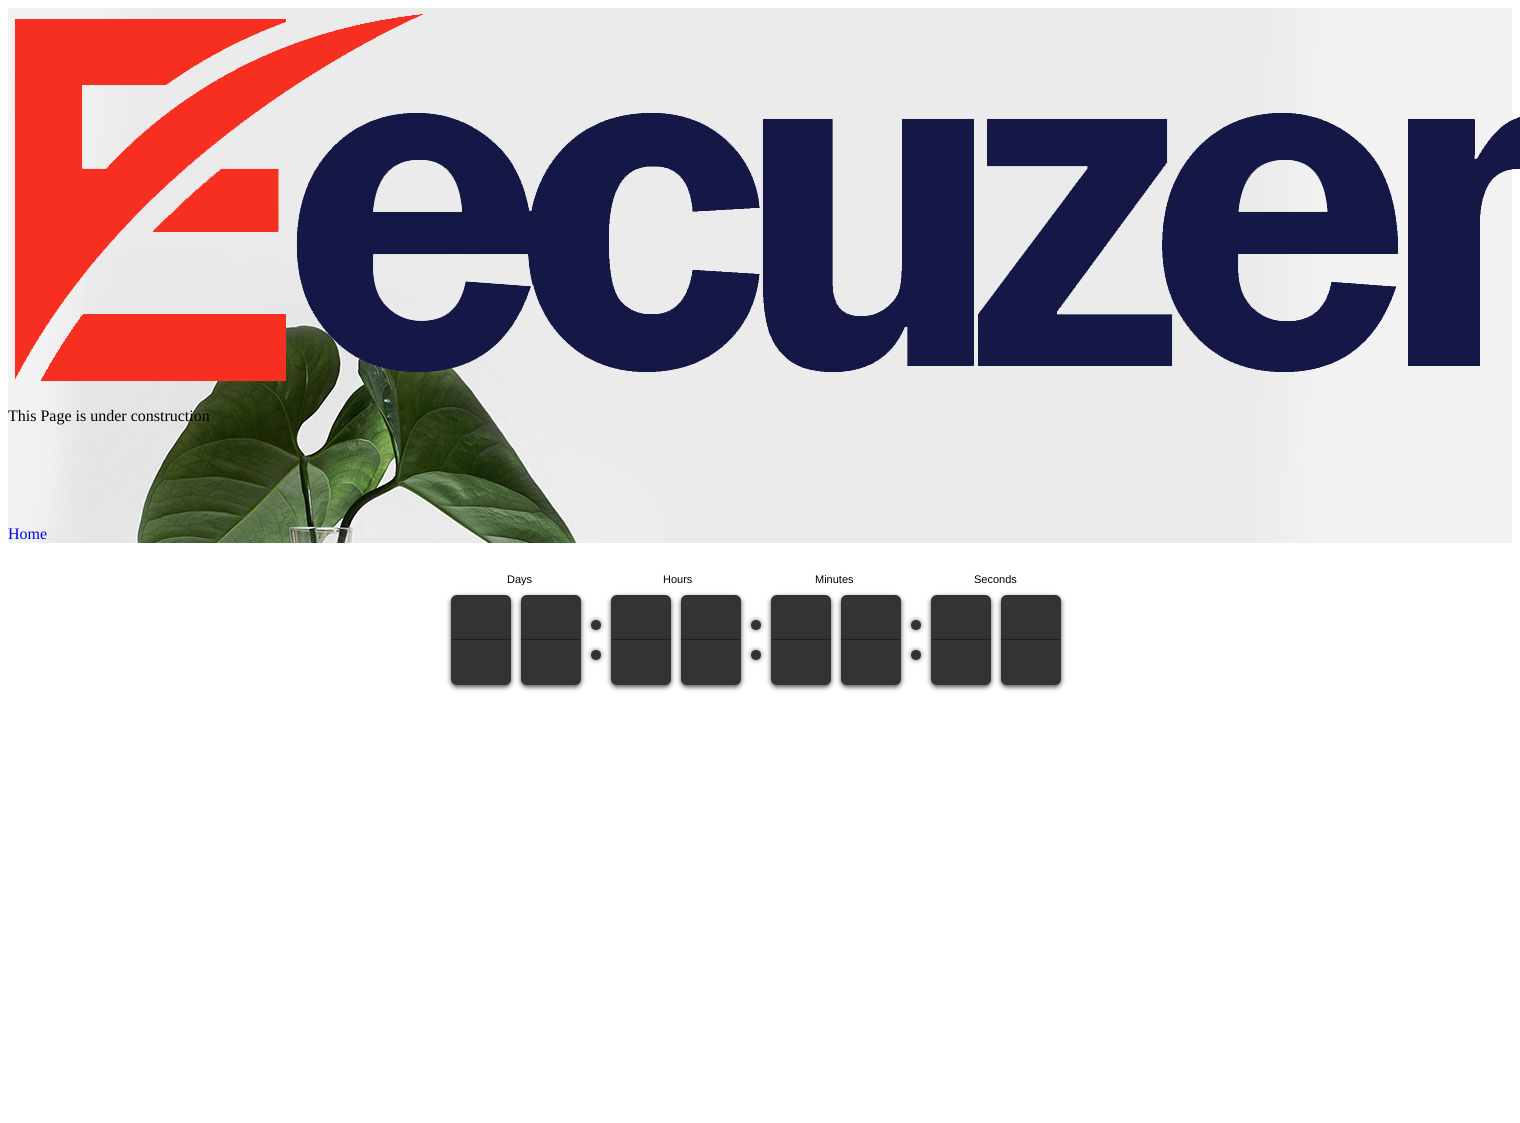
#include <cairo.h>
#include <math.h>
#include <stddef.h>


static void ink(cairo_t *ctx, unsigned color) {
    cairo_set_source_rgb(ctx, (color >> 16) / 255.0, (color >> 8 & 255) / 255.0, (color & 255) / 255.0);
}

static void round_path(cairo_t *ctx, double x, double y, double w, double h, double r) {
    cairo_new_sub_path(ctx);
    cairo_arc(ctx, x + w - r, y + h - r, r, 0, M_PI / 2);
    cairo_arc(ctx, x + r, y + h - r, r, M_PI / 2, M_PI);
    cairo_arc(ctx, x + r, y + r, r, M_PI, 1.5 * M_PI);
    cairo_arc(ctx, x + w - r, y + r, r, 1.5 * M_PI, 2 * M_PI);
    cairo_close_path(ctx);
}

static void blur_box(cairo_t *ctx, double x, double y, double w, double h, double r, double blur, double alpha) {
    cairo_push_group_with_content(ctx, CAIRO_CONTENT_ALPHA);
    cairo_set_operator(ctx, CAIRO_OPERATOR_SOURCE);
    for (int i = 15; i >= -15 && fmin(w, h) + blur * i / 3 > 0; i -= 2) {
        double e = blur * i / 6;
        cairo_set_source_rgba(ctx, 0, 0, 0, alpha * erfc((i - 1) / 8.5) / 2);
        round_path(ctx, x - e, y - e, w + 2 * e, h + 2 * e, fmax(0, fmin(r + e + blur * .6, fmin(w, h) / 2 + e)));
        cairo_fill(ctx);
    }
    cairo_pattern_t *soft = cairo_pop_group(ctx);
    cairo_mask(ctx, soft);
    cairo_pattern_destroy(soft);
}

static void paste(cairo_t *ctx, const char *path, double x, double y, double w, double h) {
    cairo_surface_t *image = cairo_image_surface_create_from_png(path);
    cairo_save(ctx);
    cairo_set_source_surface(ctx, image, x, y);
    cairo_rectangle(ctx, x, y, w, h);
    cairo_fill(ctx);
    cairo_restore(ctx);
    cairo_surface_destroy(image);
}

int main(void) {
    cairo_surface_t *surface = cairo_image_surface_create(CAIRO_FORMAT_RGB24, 1520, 1123);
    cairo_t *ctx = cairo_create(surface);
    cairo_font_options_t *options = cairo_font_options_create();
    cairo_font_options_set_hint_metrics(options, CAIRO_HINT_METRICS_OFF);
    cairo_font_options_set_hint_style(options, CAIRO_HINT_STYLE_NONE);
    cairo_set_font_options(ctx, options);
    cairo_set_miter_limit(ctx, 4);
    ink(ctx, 0xFFFFFF);
    cairo_paint(ctx);
    paste(ctx, "media/1.png", 8, 8, 1504, 535);
    paste(ctx, "media/2.png", 14, 13, 1506, 369);
    cairo_select_font_face(ctx, "Liberation Serif", CAIRO_FONT_SLANT_NORMAL, CAIRO_FONT_WEIGHT_NORMAL);
    cairo_set_font_size(ctx, 16);
    ink(ctx, 0x000000);
    cairo_move_to(ctx, 8, 421);
    cairo_show_text(ctx, "This Page is under construction");
    ink(ctx, 0x0000EE);
    cairo_move_to(ctx, 8, 539);
    cairo_show_text(ctx, "Home");
    cairo_select_font_face(ctx, "Liberation Sans", CAIRO_FONT_SLANT_NORMAL, CAIRO_FONT_WEIGHT_NORMAL);
    cairo_set_font_size(ctx, 11);
    ink(ctx, 0x000000);
    cairo_move_to(ctx, 507, 583);
    cairo_show_text(ctx, "Days");
    cairo_move_to(ctx, 663, 583);
    cairo_show_text(ctx, "Hours");
    ink(ctx, 0x000000);
    blur_box(ctx, 591, 620, 10, 10, 5, 2.5, 0.5);
    ink(ctx, 0x323434);
    cairo_arc(ctx, 596, 625, 5, 0, 2 * M_PI);
    cairo_fill(ctx);
    ink(ctx, 0x000000);
    blur_box(ctx, 591, 650, 10, 10, 5, 2.5, 0.5);
    ink(ctx, 0x323434);
    cairo_arc(ctx, 596, 655, 5, 0, 2 * M_PI);
    cairo_fill(ctx);
    ink(ctx, 0x000000);
    cairo_move_to(ctx, 815, 583);
    cairo_show_text(ctx, "Minutes");
    ink(ctx, 0x000000);
    blur_box(ctx, 751, 620, 10, 10, 5, 2.5, 0.5);
    ink(ctx, 0x323434);
    cairo_arc(ctx, 756, 625, 5, 0, 2 * M_PI);
    cairo_fill(ctx);
    ink(ctx, 0x000000);
    blur_box(ctx, 751, 650, 10, 10, 5, 2.5, 0.5);
    ink(ctx, 0x323434);
    cairo_arc(ctx, 756, 655, 5, 0, 2 * M_PI);
    cairo_fill(ctx);
    ink(ctx, 0x000000);
    cairo_move_to(ctx, 974, 583);
    cairo_show_text(ctx, "Seconds");
    ink(ctx, 0x000000);
    blur_box(ctx, 911, 620, 10, 10, 5, 2.5, 0.5);
    ink(ctx, 0x323434);
    cairo_arc(ctx, 916, 625, 5, 0, 2 * M_PI);
    cairo_fill(ctx);
    ink(ctx, 0x000000);
    blur_box(ctx, 911, 650, 10, 10, 5, 2.5, 0.5);
    ink(ctx, 0x323434);
    cairo_arc(ctx, 916, 655, 5, 0, 2 * M_PI);
    cairo_fill(ctx);
    ink(ctx, 0x000000);
    blur_box(ctx, 451, 597, 60, 90, 6, 2.5, 0.7);
    ink(ctx, 0x333333);
    cairo_new_path(ctx);
    cairo_move_to(ctx, 457, 595);
    cairo_line_to(ctx, 505, 595);
    cairo_curve_to(ctx, 508.5, 595, 511, 597.5, 511, 601);
    cairo_line_to(ctx, 511, 640);
    cairo_line_to(ctx, 451, 640);
    cairo_line_to(ctx, 451, 601);
    cairo_curve_to(ctx, 451, 597.5, 453.5, 595, 457, 595);
    cairo_close_path(ctx);
    cairo_fill(ctx);
    cairo_set_source_rgba(ctx, 0, 0, 0, 0.4);
    cairo_rectangle(ctx, 451, 639, 60, 1);
    cairo_fill(ctx);
    ink(ctx, 0x333333);
    cairo_new_path(ctx);
    cairo_move_to(ctx, 451, 640);
    cairo_line_to(ctx, 511, 640);
    cairo_line_to(ctx, 511, 679);
    cairo_curve_to(ctx, 511, 682.5, 508.5, 685, 505, 685);
    cairo_line_to(ctx, 457, 685);
    cairo_curve_to(ctx, 453.5, 685, 451, 682.5, 451, 679);
    cairo_close_path(ctx);
    cairo_fill(ctx);
    ink(ctx, 0x000000);
    blur_box(ctx, 521, 597, 60, 90, 6, 2.5, 0.7);
    ink(ctx, 0x333333);
    cairo_new_path(ctx);
    cairo_move_to(ctx, 527, 595);
    cairo_line_to(ctx, 575, 595);
    cairo_curve_to(ctx, 578.5, 595, 581, 597.5, 581, 601);
    cairo_line_to(ctx, 581, 640);
    cairo_line_to(ctx, 521, 640);
    cairo_line_to(ctx, 521, 601);
    cairo_curve_to(ctx, 521, 597.5, 523.5, 595, 527, 595);
    cairo_close_path(ctx);
    cairo_fill(ctx);
    cairo_set_source_rgba(ctx, 0, 0, 0, 0.4);
    cairo_rectangle(ctx, 521, 639, 60, 1);
    cairo_fill(ctx);
    ink(ctx, 0x333333);
    cairo_new_path(ctx);
    cairo_move_to(ctx, 521, 640);
    cairo_line_to(ctx, 581, 640);
    cairo_line_to(ctx, 581, 679);
    cairo_curve_to(ctx, 581, 682.5, 578.5, 685, 575, 685);
    cairo_line_to(ctx, 527, 685);
    cairo_curve_to(ctx, 523.5, 685, 521, 682.5, 521, 679);
    cairo_close_path(ctx);
    cairo_fill(ctx);
    ink(ctx, 0x000000);
    blur_box(ctx, 611, 597, 60, 90, 6, 2.5, 0.7);
    ink(ctx, 0x333333);
    cairo_new_path(ctx);
    cairo_move_to(ctx, 617, 595);
    cairo_line_to(ctx, 665, 595);
    cairo_curve_to(ctx, 668.5, 595, 671, 597.5, 671, 601);
    cairo_line_to(ctx, 671, 640);
    cairo_line_to(ctx, 611, 640);
    cairo_line_to(ctx, 611, 601);
    cairo_curve_to(ctx, 611, 597.5, 613.5, 595, 617, 595);
    cairo_close_path(ctx);
    cairo_fill(ctx);
    cairo_set_source_rgba(ctx, 0, 0, 0, 0.4);
    cairo_rectangle(ctx, 611, 639, 60, 1);
    cairo_fill(ctx);
    ink(ctx, 0x333333);
    cairo_new_path(ctx);
    cairo_move_to(ctx, 611, 640);
    cairo_line_to(ctx, 671, 640);
    cairo_line_to(ctx, 671, 679);
    cairo_curve_to(ctx, 671, 682.5, 668.5, 685, 665, 685);
    cairo_line_to(ctx, 617, 685);
    cairo_curve_to(ctx, 613.5, 685, 611, 682.5, 611, 679);
    cairo_close_path(ctx);
    cairo_fill(ctx);
    ink(ctx, 0x000000);
    blur_box(ctx, 681, 597, 60, 90, 6, 2.5, 0.7);
    ink(ctx, 0x333333);
    cairo_new_path(ctx);
    cairo_move_to(ctx, 687, 595);
    cairo_line_to(ctx, 735, 595);
    cairo_curve_to(ctx, 738.5, 595, 741, 597.5, 741, 601);
    cairo_line_to(ctx, 741, 640);
    cairo_line_to(ctx, 681, 640);
    cairo_line_to(ctx, 681, 601);
    cairo_curve_to(ctx, 681, 597.5, 683.5, 595, 687, 595);
    cairo_close_path(ctx);
    cairo_fill(ctx);
    cairo_set_source_rgba(ctx, 0, 0, 0, 0.4);
    cairo_rectangle(ctx, 681, 639, 60, 1);
    cairo_fill(ctx);
    ink(ctx, 0x333333);
    cairo_new_path(ctx);
    cairo_move_to(ctx, 681, 640);
    cairo_line_to(ctx, 741, 640);
    cairo_line_to(ctx, 741, 679);
    cairo_curve_to(ctx, 741, 682.5, 738.5, 685, 735, 685);
    cairo_line_to(ctx, 687, 685);
    cairo_curve_to(ctx, 683.5, 685, 681, 682.5, 681, 679);
    cairo_close_path(ctx);
    cairo_fill(ctx);
    ink(ctx, 0x000000);
    blur_box(ctx, 771, 597, 60, 90, 6, 2.5, 0.7);
    ink(ctx, 0x333333);
    cairo_new_path(ctx);
    cairo_move_to(ctx, 777, 595);
    cairo_line_to(ctx, 825, 595);
    cairo_curve_to(ctx, 828.5, 595, 831, 597.5, 831, 601);
    cairo_line_to(ctx, 831, 640);
    cairo_line_to(ctx, 771, 640);
    cairo_line_to(ctx, 771, 601);
    cairo_curve_to(ctx, 771, 597.5, 773.5, 595, 777, 595);
    cairo_close_path(ctx);
    cairo_fill(ctx);
    cairo_set_source_rgba(ctx, 0, 0, 0, 0.4);
    cairo_rectangle(ctx, 771, 639, 60, 1);
    cairo_fill(ctx);
    ink(ctx, 0x333333);
    cairo_new_path(ctx);
    cairo_move_to(ctx, 771, 640);
    cairo_line_to(ctx, 831, 640);
    cairo_line_to(ctx, 831, 679);
    cairo_curve_to(ctx, 831, 682.5, 828.5, 685, 825, 685);
    cairo_line_to(ctx, 777, 685);
    cairo_curve_to(ctx, 773.5, 685, 771, 682.5, 771, 679);
    cairo_close_path(ctx);
    cairo_fill(ctx);
    ink(ctx, 0x000000);
    blur_box(ctx, 841, 597, 60, 90, 6, 2.5, 0.7);
    ink(ctx, 0x333333);
    cairo_new_path(ctx);
    cairo_move_to(ctx, 847, 595);
    cairo_line_to(ctx, 895, 595);
    cairo_curve_to(ctx, 898.5, 595, 901, 597.5, 901, 601);
    cairo_line_to(ctx, 901, 640);
    cairo_line_to(ctx, 841, 640);
    cairo_line_to(ctx, 841, 601);
    cairo_curve_to(ctx, 841, 597.5, 843.5, 595, 847, 595);
    cairo_close_path(ctx);
    cairo_fill(ctx);
    cairo_set_source_rgba(ctx, 0, 0, 0, 0.4);
    cairo_rectangle(ctx, 841, 639, 60, 1);
    cairo_fill(ctx);
    ink(ctx, 0x333333);
    cairo_new_path(ctx);
    cairo_move_to(ctx, 841, 640);
    cairo_line_to(ctx, 901, 640);
    cairo_line_to(ctx, 901, 679);
    cairo_curve_to(ctx, 901, 682.5, 898.5, 685, 895, 685);
    cairo_line_to(ctx, 847, 685);
    cairo_curve_to(ctx, 843.5, 685, 841, 682.5, 841, 679);
    cairo_close_path(ctx);
    cairo_fill(ctx);
    ink(ctx, 0x000000);
    blur_box(ctx, 931, 597, 60, 90, 6, 2.5, 0.7);
    ink(ctx, 0x333333);
    cairo_new_path(ctx);
    cairo_move_to(ctx, 937, 595);
    cairo_line_to(ctx, 985, 595);
    cairo_curve_to(ctx, 988.5, 595, 991, 597.5, 991, 601);
    cairo_line_to(ctx, 991, 640);
    cairo_line_to(ctx, 931, 640);
    cairo_line_to(ctx, 931, 601);
    cairo_curve_to(ctx, 931, 597.5, 933.5, 595, 937, 595);
    cairo_close_path(ctx);
    cairo_fill(ctx);
    cairo_set_source_rgba(ctx, 0, 0, 0, 0.4);
    cairo_rectangle(ctx, 931, 639, 60, 1);
    cairo_fill(ctx);
    ink(ctx, 0x333333);
    cairo_new_path(ctx);
    cairo_move_to(ctx, 931, 640);
    cairo_line_to(ctx, 991, 640);
    cairo_line_to(ctx, 991, 679);
    cairo_curve_to(ctx, 991, 682.5, 988.5, 685, 985, 685);
    cairo_line_to(ctx, 937, 685);
    cairo_curve_to(ctx, 933.5, 685, 931, 682.5, 931, 679);
    cairo_close_path(ctx);
    cairo_fill(ctx);
    ink(ctx, 0x000000);
    blur_box(ctx, 1001, 597, 60, 90, 6, 2.5, 0.7);
    ink(ctx, 0x333333);
    cairo_new_path(ctx);
    cairo_move_to(ctx, 1007, 595);
    cairo_line_to(ctx, 1055, 595);
    cairo_curve_to(ctx, 1058.5, 595, 1061, 597.5, 1061, 601);
    cairo_line_to(ctx, 1061, 640);
    cairo_line_to(ctx, 1001, 640);
    cairo_line_to(ctx, 1001, 601);
    cairo_curve_to(ctx, 1001, 597.5, 1003.5, 595, 1007, 595);
    cairo_close_path(ctx);
    cairo_fill(ctx);
    cairo_set_source_rgba(ctx, 0, 0, 0, 0.4);
    cairo_rectangle(ctx, 1001, 639, 60, 1);
    cairo_fill(ctx);
    ink(ctx, 0x333333);
    cairo_new_path(ctx);
    cairo_move_to(ctx, 1001, 640);
    cairo_line_to(ctx, 1061, 640);
    cairo_line_to(ctx, 1061, 679);
    cairo_curve_to(ctx, 1061, 682.5, 1058.5, 685, 1055, 685);
    cairo_line_to(ctx, 1007, 685);
    cairo_curve_to(ctx, 1003.5, 685, 1001, 682.5, 1001, 679);
    cairo_close_path(ctx);
    cairo_fill(ctx);
    cairo_surface_write_to_png(surface, "image.png");
    cairo_font_options_destroy(options);
    cairo_destroy(ctx);
    cairo_surface_destroy(surface);
    return 0;
}
